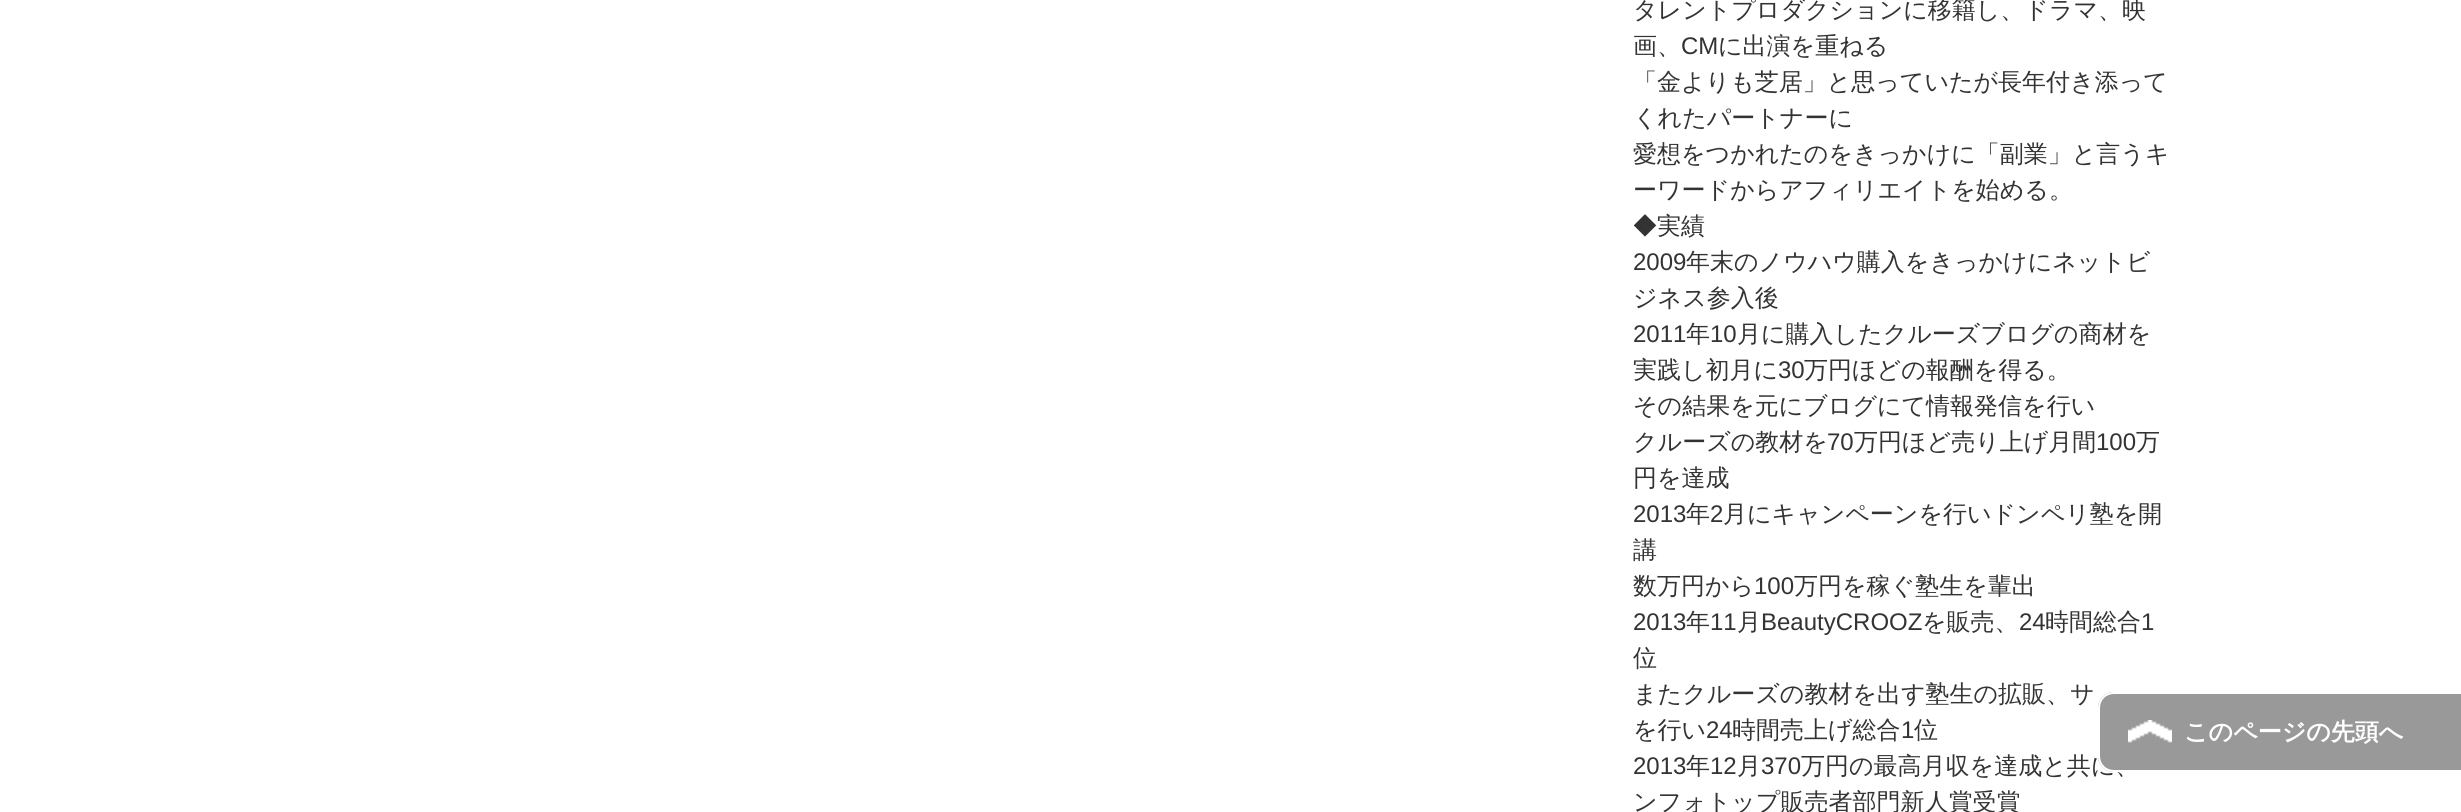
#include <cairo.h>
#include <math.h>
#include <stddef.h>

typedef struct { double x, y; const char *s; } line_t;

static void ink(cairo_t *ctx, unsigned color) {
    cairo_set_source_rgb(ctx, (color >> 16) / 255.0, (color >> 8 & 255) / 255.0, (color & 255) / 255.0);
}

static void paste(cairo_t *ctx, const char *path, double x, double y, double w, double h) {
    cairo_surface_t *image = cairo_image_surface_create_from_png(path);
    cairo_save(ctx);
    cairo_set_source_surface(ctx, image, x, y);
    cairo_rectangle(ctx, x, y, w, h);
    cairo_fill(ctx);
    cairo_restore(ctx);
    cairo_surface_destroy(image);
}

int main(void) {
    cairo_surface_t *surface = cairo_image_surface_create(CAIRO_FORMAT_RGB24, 2461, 812);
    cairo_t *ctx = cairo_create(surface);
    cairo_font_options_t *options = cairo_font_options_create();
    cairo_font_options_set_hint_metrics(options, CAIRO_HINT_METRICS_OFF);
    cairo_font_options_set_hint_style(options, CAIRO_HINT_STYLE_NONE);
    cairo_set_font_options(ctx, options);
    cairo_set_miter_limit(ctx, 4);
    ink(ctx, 0xFFFFFF);
    cairo_paint(ctx);
    cairo_select_font_face(ctx, "WenQuanYi Zen Hei Medium", CAIRO_FONT_SLANT_NORMAL, CAIRO_FONT_WEIGHT_NORMAL);
    cairo_set_font_size(ctx, 24);
    ink(ctx, 0x333333);
    cairo_move_to(ctx, 1633, 18);
    cairo_show_text(ctx, "タレントプロダクションに移籍し、ドラマ、映");
    cairo_move_to(ctx, 1633, 54);
    cairo_show_text(ctx, "画、");
    cairo_select_font_face(ctx, "Liberation Sans", CAIRO_FONT_SLANT_NORMAL, CAIRO_FONT_WEIGHT_NORMAL);
    cairo_move_to(ctx, 1681, 54);
    cairo_show_text(ctx, "CM");
    cairo_select_font_face(ctx, "WenQuanYi Zen Hei Medium", CAIRO_FONT_SLANT_NORMAL, CAIRO_FONT_WEIGHT_NORMAL);
    {
        static const line_t items[] = {
            {1718, 54, "に出演を重ねる"},
            {1633, 90, "「金よりも芝居」と思っていたが長年付き添って"},
            {1633, 126, "くれたパートナーに"},
            {1633, 162, "愛想をつかれたのをきっかけに「副業」と言うキ"},
            {1633, 198, "ーワードからアフィリエイトを始める。"},
            {1633, 234, "◆実績"},
        };
        for (size_t i = 0; i < sizeof items / sizeof *items; i++) {
            cairo_move_to(ctx, items[i].x, items[i].y);
            cairo_show_text(ctx, items[i].s);
        }
    }
    cairo_select_font_face(ctx, "Liberation Sans", CAIRO_FONT_SLANT_NORMAL, CAIRO_FONT_WEIGHT_NORMAL);
    cairo_move_to(ctx, 1633, 270);
    cairo_show_text(ctx, "2009");
    cairo_select_font_face(ctx, "WenQuanYi Zen Hei Medium", CAIRO_FONT_SLANT_NORMAL, CAIRO_FONT_WEIGHT_NORMAL);
    cairo_move_to(ctx, 1686, 270);
    cairo_show_text(ctx, "年末のノウハウ購入をきっかけにネットビ");
    cairo_move_to(ctx, 1633, 306);
    cairo_show_text(ctx, "ジネス参入後");
    cairo_select_font_face(ctx, "Liberation Sans", CAIRO_FONT_SLANT_NORMAL, CAIRO_FONT_WEIGHT_NORMAL);
    cairo_move_to(ctx, 1633, 342);
    cairo_show_text(ctx, "2011");
    cairo_select_font_face(ctx, "WenQuanYi Zen Hei Medium", CAIRO_FONT_SLANT_NORMAL, CAIRO_FONT_WEIGHT_NORMAL);
    cairo_move_to(ctx, 1686, 342);
    cairo_show_text(ctx, "年");
    cairo_select_font_face(ctx, "Liberation Sans", CAIRO_FONT_SLANT_NORMAL, CAIRO_FONT_WEIGHT_NORMAL);
    cairo_move_to(ctx, 1710, 342);
    cairo_show_text(ctx, "10");
    cairo_select_font_face(ctx, "WenQuanYi Zen Hei Medium", CAIRO_FONT_SLANT_NORMAL, CAIRO_FONT_WEIGHT_NORMAL);
    cairo_move_to(ctx, 1737, 342);
    cairo_show_text(ctx, "月に購入したクルーズブログの商材を");
    cairo_move_to(ctx, 1633, 378);
    cairo_show_text(ctx, "実践し初月に");
    cairo_select_font_face(ctx, "Liberation Sans", CAIRO_FONT_SLANT_NORMAL, CAIRO_FONT_WEIGHT_NORMAL);
    cairo_move_to(ctx, 1778, 378);
    cairo_show_text(ctx, "30");
    cairo_select_font_face(ctx, "WenQuanYi Zen Hei Medium", CAIRO_FONT_SLANT_NORMAL, CAIRO_FONT_WEIGHT_NORMAL);
    {
        static const line_t items[] = {
            {1804, 378, "万円ほどの報酬を得る。"},
            {1633, 414, "その結果を元にブログにて情報発信を行い"},
            {1633, 450, "クルーズの教材を"},
        };
        for (size_t i = 0; i < sizeof items / sizeof *items; i++) {
            cairo_move_to(ctx, items[i].x, items[i].y);
            cairo_show_text(ctx, items[i].s);
        }
    }
    cairo_select_font_face(ctx, "Liberation Sans", CAIRO_FONT_SLANT_NORMAL, CAIRO_FONT_WEIGHT_NORMAL);
    cairo_move_to(ctx, 1827, 450);
    cairo_show_text(ctx, "70");
    cairo_select_font_face(ctx, "WenQuanYi Zen Hei Medium", CAIRO_FONT_SLANT_NORMAL, CAIRO_FONT_WEIGHT_NORMAL);
    cairo_move_to(ctx, 1854, 450);
    cairo_show_text(ctx, "万円ほど売り上げ月間");
    cairo_select_font_face(ctx, "Liberation Sans", CAIRO_FONT_SLANT_NORMAL, CAIRO_FONT_WEIGHT_NORMAL);
    cairo_move_to(ctx, 2096, 450);
    cairo_show_text(ctx, "100");
    cairo_select_font_face(ctx, "WenQuanYi Zen Hei Medium", CAIRO_FONT_SLANT_NORMAL, CAIRO_FONT_WEIGHT_NORMAL);
    cairo_move_to(ctx, 2136, 450);
    cairo_show_text(ctx, "万");
    cairo_move_to(ctx, 1633, 486);
    cairo_show_text(ctx, "円を達成");
    cairo_select_font_face(ctx, "Liberation Sans", CAIRO_FONT_SLANT_NORMAL, CAIRO_FONT_WEIGHT_NORMAL);
    cairo_move_to(ctx, 1633, 522);
    cairo_show_text(ctx, "2013");
    cairo_select_font_face(ctx, "WenQuanYi Zen Hei Medium", CAIRO_FONT_SLANT_NORMAL, CAIRO_FONT_WEIGHT_NORMAL);
    cairo_move_to(ctx, 1686, 522);
    cairo_show_text(ctx, "年");
    cairo_select_font_face(ctx, "Liberation Sans", CAIRO_FONT_SLANT_NORMAL, CAIRO_FONT_WEIGHT_NORMAL);
    cairo_move_to(ctx, 1710, 522);
    cairo_show_text(ctx, "2");
    cairo_select_font_face(ctx, "WenQuanYi Zen Hei Medium", CAIRO_FONT_SLANT_NORMAL, CAIRO_FONT_WEIGHT_NORMAL);
    {
        static const line_t items[] = {
            {1723, 522, "月にキャンペーンを行いドンペリ塾を開"},
            {1633, 558, "講"},
            {1633, 594, "数万円から"},
        };
        for (size_t i = 0; i < sizeof items / sizeof *items; i++) {
            cairo_move_to(ctx, items[i].x, items[i].y);
            cairo_show_text(ctx, items[i].s);
        }
    }
    cairo_select_font_face(ctx, "Liberation Sans", CAIRO_FONT_SLANT_NORMAL, CAIRO_FONT_WEIGHT_NORMAL);
    cairo_move_to(ctx, 1754, 594);
    cairo_show_text(ctx, "100");
    cairo_select_font_face(ctx, "WenQuanYi Zen Hei Medium", CAIRO_FONT_SLANT_NORMAL, CAIRO_FONT_WEIGHT_NORMAL);
    cairo_move_to(ctx, 1794, 594);
    cairo_show_text(ctx, "万円を稼ぐ塾生を輩出");
    cairo_select_font_face(ctx, "Liberation Sans", CAIRO_FONT_SLANT_NORMAL, CAIRO_FONT_WEIGHT_NORMAL);
    cairo_move_to(ctx, 1633, 630);
    cairo_show_text(ctx, "2013");
    cairo_select_font_face(ctx, "WenQuanYi Zen Hei Medium", CAIRO_FONT_SLANT_NORMAL, CAIRO_FONT_WEIGHT_NORMAL);
    cairo_move_to(ctx, 1686, 630);
    cairo_show_text(ctx, "年");
    cairo_select_font_face(ctx, "Liberation Sans", CAIRO_FONT_SLANT_NORMAL, CAIRO_FONT_WEIGHT_NORMAL);
    cairo_move_to(ctx, 1710, 630);
    cairo_show_text(ctx, "11");
    cairo_select_font_face(ctx, "WenQuanYi Zen Hei Medium", CAIRO_FONT_SLANT_NORMAL, CAIRO_FONT_WEIGHT_NORMAL);
    cairo_move_to(ctx, 1737, 630);
    cairo_show_text(ctx, "月");
    cairo_select_font_face(ctx, "Liberation Sans", CAIRO_FONT_SLANT_NORMAL, CAIRO_FONT_WEIGHT_NORMAL);
    cairo_move_to(ctx, 1761, 630);
    cairo_show_text(ctx, "BeautyCROOZ");
    cairo_select_font_face(ctx, "WenQuanYi Zen Hei Medium", CAIRO_FONT_SLANT_NORMAL, CAIRO_FONT_WEIGHT_NORMAL);
    cairo_move_to(ctx, 1922, 630);
    cairo_show_text(ctx, "を販売、");
    cairo_select_font_face(ctx, "Liberation Sans", CAIRO_FONT_SLANT_NORMAL, CAIRO_FONT_WEIGHT_NORMAL);
    cairo_move_to(ctx, 2019, 630);
    cairo_show_text(ctx, "24");
    cairo_select_font_face(ctx, "WenQuanYi Zen Hei Medium", CAIRO_FONT_SLANT_NORMAL, CAIRO_FONT_WEIGHT_NORMAL);
    cairo_move_to(ctx, 2045, 630);
    cairo_show_text(ctx, "時間総合");
    cairo_select_font_face(ctx, "Liberation Sans", CAIRO_FONT_SLANT_NORMAL, CAIRO_FONT_WEIGHT_NORMAL);
    cairo_move_to(ctx, 2141, 630);
    cairo_show_text(ctx, "1");
    cairo_select_font_face(ctx, "WenQuanYi Zen Hei Medium", CAIRO_FONT_SLANT_NORMAL, CAIRO_FONT_WEIGHT_NORMAL);
    {
        static const line_t items[] = {
            {1633, 666, "位"},
            {1633, 702, "またクルーズの教材を出す塾生の拡販、サ"},
            {1633, 738, "を行い"},
        };
        for (size_t i = 0; i < sizeof items / sizeof *items; i++) {
            cairo_move_to(ctx, items[i].x, items[i].y);
            cairo_show_text(ctx, items[i].s);
        }
    }
    cairo_select_font_face(ctx, "Liberation Sans", CAIRO_FONT_SLANT_NORMAL, CAIRO_FONT_WEIGHT_NORMAL);
    cairo_move_to(ctx, 1706, 738);
    cairo_show_text(ctx, "24");
    cairo_select_font_face(ctx, "WenQuanYi Zen Hei Medium", CAIRO_FONT_SLANT_NORMAL, CAIRO_FONT_WEIGHT_NORMAL);
    cairo_move_to(ctx, 1732, 738);
    cairo_show_text(ctx, "時間売上げ総合");
    cairo_select_font_face(ctx, "Liberation Sans", CAIRO_FONT_SLANT_NORMAL, CAIRO_FONT_WEIGHT_NORMAL);
    cairo_move_to(ctx, 1901, 738);
    cairo_show_text(ctx, "1");
    cairo_select_font_face(ctx, "WenQuanYi Zen Hei Medium", CAIRO_FONT_SLANT_NORMAL, CAIRO_FONT_WEIGHT_NORMAL);
    cairo_move_to(ctx, 1914, 738);
    cairo_show_text(ctx, "位");
    cairo_select_font_face(ctx, "Liberation Sans", CAIRO_FONT_SLANT_NORMAL, CAIRO_FONT_WEIGHT_NORMAL);
    cairo_move_to(ctx, 1633, 774);
    cairo_show_text(ctx, "2013");
    cairo_select_font_face(ctx, "WenQuanYi Zen Hei Medium", CAIRO_FONT_SLANT_NORMAL, CAIRO_FONT_WEIGHT_NORMAL);
    cairo_move_to(ctx, 1686, 774);
    cairo_show_text(ctx, "年");
    cairo_select_font_face(ctx, "Liberation Sans", CAIRO_FONT_SLANT_NORMAL, CAIRO_FONT_WEIGHT_NORMAL);
    cairo_move_to(ctx, 1710, 774);
    cairo_show_text(ctx, "12");
    cairo_select_font_face(ctx, "WenQuanYi Zen Hei Medium", CAIRO_FONT_SLANT_NORMAL, CAIRO_FONT_WEIGHT_NORMAL);
    cairo_move_to(ctx, 1737, 774);
    cairo_show_text(ctx, "月");
    cairo_select_font_face(ctx, "Liberation Sans", CAIRO_FONT_SLANT_NORMAL, CAIRO_FONT_WEIGHT_NORMAL);
    cairo_move_to(ctx, 1761, 774);
    cairo_show_text(ctx, "370");
    cairo_select_font_face(ctx, "WenQuanYi Zen Hei Medium", CAIRO_FONT_SLANT_NORMAL, CAIRO_FONT_WEIGHT_NORMAL);
    cairo_move_to(ctx, 1801, 774);
    cairo_show_text(ctx, "万円の最高月収を達成と共に、");
    cairo_move_to(ctx, 1633, 810);
    cairo_show_text(ctx, "ンフォトップ販売者部門新人賞受賞");
    ink(ctx, 0x999999);
    cairo_new_path(ctx);
    cairo_move_to(ctx, 2114, 692);
    cairo_line_to(ctx, 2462, 692);
    cairo_line_to(ctx, 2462, 772);
    cairo_line_to(ctx, 2114, 772);
    cairo_curve_to(ctx, 2105, 772, 2098, 765, 2098, 756);
    cairo_line_to(ctx, 2098, 708);
    cairo_curve_to(ctx, 2098, 699, 2105, 692, 2114, 692);
    cairo_close_path(ctx);
    cairo_fill(ctx);
    paste(ctx, "media/1.png", 2128, 720, 44, 23);
    ink(ctx, 0xFFFFFF);
    cairo_set_fill_rule(ctx, CAIRO_FILL_RULE_EVEN_ODD);
    cairo_new_path(ctx);
    cairo_move_to(ctx, 2114, 692);
    cairo_line_to(ctx, 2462, 692);
    cairo_line_to(ctx, 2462, 772);
    cairo_line_to(ctx, 2114, 772);
    cairo_curve_to(ctx, 2105, 772, 2098, 765, 2098, 756);
    cairo_line_to(ctx, 2098, 708);
    cairo_curve_to(ctx, 2098, 699, 2105, 692, 2114, 692);
    cairo_close_path(ctx);
    cairo_move_to(ctx, 2114, 694);
    cairo_line_to(ctx, 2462, 694);
    cairo_line_to(ctx, 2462, 770);
    cairo_line_to(ctx, 2114, 770);
    cairo_curve_to(ctx, 2106, 770, 2100, 764, 2100, 756);
    cairo_line_to(ctx, 2100, 708);
    cairo_curve_to(ctx, 2100, 700, 2106, 694, 2114, 694);
    cairo_close_path(ctx);
    cairo_fill(ctx);
    cairo_select_font_face(ctx, "WenQuanYi Zen Hei", CAIRO_FONT_SLANT_NORMAL, CAIRO_FONT_WEIGHT_BOLD);
    cairo_move_to(ctx, 2184, 740);
    cairo_show_text(ctx, "このページの先頭へ");
    cairo_surface_write_to_png(surface, "image.png");
    cairo_font_options_destroy(options);
    cairo_destroy(ctx);
    cairo_surface_destroy(surface);
    return 0;
}
